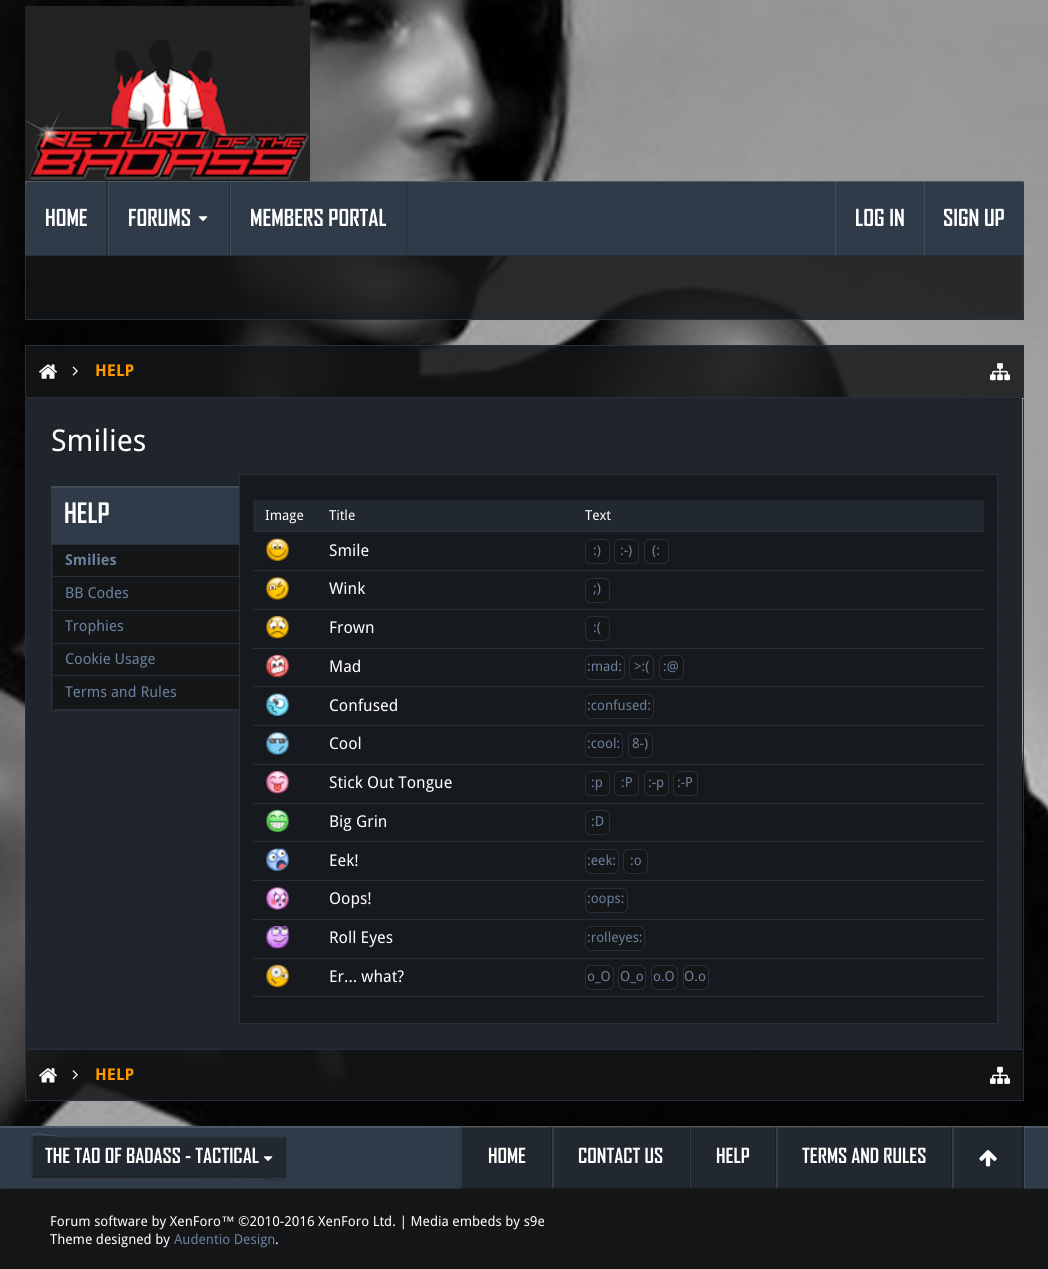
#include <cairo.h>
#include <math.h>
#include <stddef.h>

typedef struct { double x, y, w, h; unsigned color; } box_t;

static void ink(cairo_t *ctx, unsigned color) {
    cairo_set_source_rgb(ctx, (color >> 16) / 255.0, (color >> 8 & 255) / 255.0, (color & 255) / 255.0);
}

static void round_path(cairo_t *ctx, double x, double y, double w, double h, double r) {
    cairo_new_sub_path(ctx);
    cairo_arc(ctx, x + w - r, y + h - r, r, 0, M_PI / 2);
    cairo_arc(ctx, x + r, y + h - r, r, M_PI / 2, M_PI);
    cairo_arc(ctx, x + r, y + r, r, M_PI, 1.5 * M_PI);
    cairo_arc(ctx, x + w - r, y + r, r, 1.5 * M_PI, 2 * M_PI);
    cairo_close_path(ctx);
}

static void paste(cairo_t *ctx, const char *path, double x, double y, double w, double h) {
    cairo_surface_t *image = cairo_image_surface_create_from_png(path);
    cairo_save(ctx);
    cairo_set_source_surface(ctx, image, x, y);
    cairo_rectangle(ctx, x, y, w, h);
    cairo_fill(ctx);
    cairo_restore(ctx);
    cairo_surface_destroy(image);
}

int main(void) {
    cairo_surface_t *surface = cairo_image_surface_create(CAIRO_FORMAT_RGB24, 1048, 1269);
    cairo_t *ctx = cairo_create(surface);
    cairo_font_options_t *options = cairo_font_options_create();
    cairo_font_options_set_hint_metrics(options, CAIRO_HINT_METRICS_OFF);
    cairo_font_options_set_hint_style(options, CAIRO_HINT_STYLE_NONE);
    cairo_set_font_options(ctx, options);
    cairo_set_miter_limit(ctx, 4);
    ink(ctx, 0xFFFFFF);
    cairo_paint(ctx);
    paste(ctx, "media/1.png", 0, 0, 1048, 1190);
    paste(ctx, "media/2.png", 25, 6, 285, 176);
    ink(ctx, 0x2F3B49);
    cairo_new_path(ctx);
    cairo_move_to(ctx, 26, 181);
    cairo_line_to(ctx, 1023, 181);
    cairo_curve_to(ctx, 1023.5, 181, 1024, 181.5, 1024, 182);
    cairo_line_to(ctx, 1024, 256);
    cairo_line_to(ctx, 25, 256);
    cairo_line_to(ctx, 25, 182);
    cairo_curve_to(ctx, 25, 181.5, 25.5, 181, 26, 181);
    cairo_close_path(ctx);
    cairo_fill(ctx);
    ink(ctx, 0x262F3A);
    cairo_rectangle(ctx, 25, 255, 999, 1);
    cairo_fill(ctx);
    cairo_set_source_rgba(ctx, 1, 1, 1, 0.15);
    cairo_new_path(ctx);
    cairo_move_to(ctx, 26, 182);
    cairo_line_to(ctx, 1022, 182);
    cairo_curve_to(ctx, 1023, 182, 1024, 183, 1024, 184);
    cairo_line_to(ctx, 1024, 181);
    cairo_line_to(ctx, 26, 181);
    cairo_line_to(ctx, 25, 182);
    cairo_line_to(ctx, 25, 184);
    cairo_close_path(ctx);
    cairo_fill(ctx);
    cairo_set_source_rgba(ctx, 0, 0, 0, 0.2);
    cairo_rectangle(ctx, 106, 181, 2, 75);
    cairo_fill(ctx);
    cairo_set_source_rgba(ctx, 1, 1, 1, 0.1);
    cairo_new_path(ctx);
    cairo_move_to(ctx, 25, 256);
    cairo_line_to(ctx, 26, 256);
    cairo_line_to(ctx, 26, 181);
    cairo_line_to(ctx, 25, 182);
    cairo_close_path(ctx);
    cairo_fill(ctx);
    cairo_select_font_face(ctx, "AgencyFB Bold", CAIRO_FONT_SLANT_NORMAL, CAIRO_FONT_WEIGHT_BOLD);
    cairo_set_font_size(ctx, 22.5);
    ink(ctx, 0xFFFFFF);
    cairo_move_to(ctx, 45, 226);
    cairo_show_text(ctx, "HOME");
    cairo_set_source_rgba(ctx, 0, 0, 0, 0.2);
    cairo_rectangle(ctx, 229, 181, 1, 75);
    cairo_fill(ctx);
    cairo_set_source_rgba(ctx, 1, 1, 1, 0.1);
    cairo_rectangle(ctx, 108, 181, 1, 75);
    cairo_fill(ctx);
    ink(ctx, 0xFFFFFF);
    cairo_move_to(ctx, 128, 226);
    cairo_show_text(ctx, "FORUMS");
    paste(ctx, "media/3.png", 198, 216, 10, 5);
    cairo_set_source_rgba(ctx, 0, 0, 0, 0.2);
    cairo_rectangle(ctx, 406, 181, 1, 75);
    cairo_fill(ctx);
    cairo_set_source_rgba(ctx, 1, 1, 1, 0.1);
    cairo_rectangle(ctx, 230, 181, 1, 75);
    cairo_fill(ctx);
    ink(ctx, 0xFFFFFF);
    cairo_move_to(ctx, 250, 226);
    cairo_show_text(ctx, "MEMBERS PORTAL");
    cairo_set_source_rgba(ctx, 0.078, 0.086, 0.094, 0.85);
    cairo_rectangle(ctx, 26, 256, 997, 63);
    cairo_fill(ctx);
    ink(ctx, 0x282F38);
    cairo_rectangle(ctx, 1023, 256, 1, 64);
    cairo_fill(ctx);
    cairo_rectangle(ctx, 26, 319, 998, 1);
    cairo_fill(ctx);
    cairo_rectangle(ctx, 25, 256, 1, 64);
    cairo_fill(ctx);
    cairo_set_source_rgba(ctx, 1, 1, 1, 0.1);
    cairo_rectangle(ctx, 835, 181, 1, 75);
    cairo_fill(ctx);
    ink(ctx, 0xFFFFFF);
    cairo_move_to(ctx, 855, 226);
    cairo_show_text(ctx, "LOG IN");
    cairo_set_source_rgba(ctx, 1, 1, 1, 0.1);
    cairo_rectangle(ctx, 924, 181, 1, 75);
    cairo_fill(ctx);
    ink(ctx, 0xFFFFFF);
    cairo_move_to(ctx, 943, 226);
    cairo_show_text(ctx, "SIGN UP");
    cairo_set_source_rgba(ctx, 0.078, 0.086, 0.094, 0.85);
    cairo_rectangle(ctx, 25.5, 345.5, 998, 52);
    cairo_fill_preserve(ctx);
    ink(ctx, 0x282F38);
    cairo_set_line_width(ctx, 1);
    cairo_stroke(ctx);
    paste(ctx, "media/4.png", 39, 364, 18, 15);
    paste(ctx, "media/5.png", 72, 366, 6, 10);
    cairo_select_font_face(ctx, "Droid Sans", CAIRO_FONT_SLANT_NORMAL, CAIRO_FONT_WEIGHT_BOLD);
    cairo_set_font_size(ctx, 16.25);
    ink(ctx, 0xFF9900);
    cairo_move_to(ctx, 95, 376);
    cairo_show_text(ctx, "HELP");
    paste(ctx, "media/6.png", 990, 363, 20, 18);
    ink(ctx, 0x22282F);
    cairo_rectangle(ctx, 26, 398, 996, 651);
    cairo_fill(ctx);
    paste(ctx, "media/7.png", 25, 398, 999, 650);
    ink(ctx, 0x282F38);
    cairo_rectangle(ctx, 1023, 399, 1, 650);
    cairo_fill(ctx);
    cairo_rectangle(ctx, 25, 399, 1, 650);
    cairo_fill(ctx);
    cairo_select_font_face(ctx, "Droid Sans", CAIRO_FONT_SLANT_NORMAL, CAIRO_FONT_WEIGHT_NORMAL);
    cairo_set_font_size(ctx, 30);
    ink(ctx, 0xFFFFFF);
    cairo_move_to(ctx, 51, 451);
    cairo_show_text(ctx, "Smilies");
    ink(ctx, 0x2F3B49);
    cairo_new_path(ctx);
    cairo_move_to(ctx, 52, 486);
    cairo_line_to(ctx, 239, 486);
    cairo_line_to(ctx, 239, 545);
    cairo_line_to(ctx, 51, 545);
    cairo_line_to(ctx, 51, 487);
    cairo_curve_to(ctx, 51, 486.5, 51.5, 486, 52, 486);
    cairo_close_path(ctx);
    cairo_fill(ctx);
    ink(ctx, 0x262F3A);
    cairo_rectangle(ctx, 51, 544, 188, 1);
    cairo_fill(ctx);
    cairo_set_source_rgba(ctx, 1, 1, 1, 0.1);
    cairo_new_path(ctx);
    cairo_move_to(ctx, 52, 488);
    cairo_line_to(ctx, 239, 488);
    cairo_line_to(ctx, 239, 486);
    cairo_line_to(ctx, 52, 486);
    cairo_curve_to(ctx, 51, 486, 51, 488, 51, 489);
    cairo_close_path(ctx);
    cairo_fill(ctx);
    cairo_select_font_face(ctx, "AgencyFB Bold", CAIRO_FONT_SLANT_NORMAL, CAIRO_FONT_WEIGHT_BOLD);
    cairo_set_font_size(ctx, 27);
    ink(ctx, 0xFFFFFF);
    cairo_move_to(ctx, 64, 523);
    cairo_show_text(ctx, "HELP");
    {
        static const box_t items[] = {
            {53, 545, 186, 165, 0x141618},
            {53, 710, 186, 1, 0x282F38},
            {51, 545, 1, 166, 0x282F38},
            {53, 576, 186, 1, 0x282F38},
        };
        for (size_t i = 0; i < sizeof items / sizeof *items; i++) {
            ink(ctx, items[i].color);
            cairo_rectangle(ctx, items[i].x, items[i].y, items[i].w, items[i].h);
            cairo_fill(ctx);
        }
    }
    cairo_select_font_face(ctx, "Droid Sans", CAIRO_FONT_SLANT_NORMAL, CAIRO_FONT_WEIGHT_BOLD);
    cairo_set_font_size(ctx, 15);
    ink(ctx, 0x6A809C);
    cairo_move_to(ctx, 65, 565);
    cairo_show_text(ctx, "Smilies");
    ink(ctx, 0x282F38);
    cairo_rectangle(ctx, 53, 610, 186, 1);
    cairo_fill(ctx);
    cairo_select_font_face(ctx, "Droid Sans", CAIRO_FONT_SLANT_NORMAL, CAIRO_FONT_WEIGHT_NORMAL);
    ink(ctx, 0x6A809C);
    cairo_move_to(ctx, 65, 598);
    cairo_show_text(ctx, "BB Codes");
    ink(ctx, 0x282F38);
    cairo_rectangle(ctx, 53, 643, 186, 1);
    cairo_fill(ctx);
    ink(ctx, 0x6A809C);
    cairo_move_to(ctx, 65, 631);
    cairo_show_text(ctx, "Trophies");
    ink(ctx, 0x282F38);
    cairo_rectangle(ctx, 53, 675, 186, 1);
    cairo_fill(ctx);
    ink(ctx, 0x6A809C);
    cairo_move_to(ctx, 65, 664);
    cairo_show_text(ctx, "Cookie Usage");
    ink(ctx, 0x282F38);
    cairo_rectangle(ctx, 54, 709, 185, 1);
    cairo_fill(ctx);
    ink(ctx, 0x6A809C);
    cairo_move_to(ctx, 65, 697);
    cairo_show_text(ctx, "Terms and Rules");
    ink(ctx, 0x16191D);
    round_path(ctx, 239.5, 474.5, 758, 549, 0.5);
    cairo_fill_preserve(ctx);
    ink(ctx, 0x282F38);
    cairo_stroke(ctx);
    ink(ctx, 0x22282F);
    cairo_rectangle(ctx, 253, 500, 320, 31);
    cairo_fill(ctx);
    cairo_set_font_size(ctx, 13.75);
    ink(ctx, 0xFFFFFF);
    cairo_move_to(ctx, 265, 520);
    cairo_show_text(ctx, "Image");
    cairo_move_to(ctx, 329, 520);
    cairo_show_text(ctx, "Title");
    {
        static const box_t items[] = {
            {573, 501, 411, 30, 0x22282F},
            {571, 500, 414, 1, 0x22282F},
            {253, 531, 732, 1, 0x282F38},
        };
        for (size_t i = 0; i < sizeof items / sizeof *items; i++) {
            ink(ctx, items[i].color);
            cairo_rectangle(ctx, items[i].x, items[i].y, items[i].w, items[i].h);
            cairo_fill(ctx);
        }
    }
    ink(ctx, 0xFFFFFF);
    cairo_move_to(ctx, 585, 520);
    cairo_show_text(ctx, "Text");
    paste(ctx, "media/8.png", 266, 538, 23, 23);
    cairo_set_font_size(ctx, 16.25);
    cairo_move_to(ctx, 329, 556);
    cairo_show_text(ctx, "Smile");
    ink(ctx, 0x282F38);
    cairo_rectangle(ctx, 253, 570, 732, 1);
    cairo_fill(ctx);
    ink(ctx, 0x141618);
    round_path(ctx, 585.5, 539.5, 24, 24, 5.5);
    cairo_fill_preserve(ctx);
    ink(ctx, 0x282F38);
    cairo_stroke(ctx);
    cairo_set_font_size(ctx, 13.75);
    ink(ctx, 0x6A809C);
    cairo_move_to(ctx, 593, 555);
    cairo_show_text(ctx, ":)");
    ink(ctx, 0x141618);
    round_path(ctx, 614.5, 539.5, 24, 24, 5.5);
    cairo_fill_preserve(ctx);
    ink(ctx, 0x282F38);
    cairo_stroke(ctx);
    ink(ctx, 0x6A809C);
    cairo_move_to(ctx, 620, 555);
    cairo_show_text(ctx, ":-)");
    ink(ctx, 0x141618);
    round_path(ctx, 644.5, 539.5, 24, 24, 5.5);
    cairo_fill_preserve(ctx);
    ink(ctx, 0x282F38);
    cairo_stroke(ctx);
    ink(ctx, 0x6A809C);
    cairo_move_to(ctx, 652, 555);
    cairo_show_text(ctx, "(:");
    paste(ctx, "media/9.png", 266, 577, 23, 23);
    cairo_set_font_size(ctx, 16.25);
    ink(ctx, 0xFFFFFF);
    cairo_move_to(ctx, 329, 594);
    cairo_show_text(ctx, "Wink");
    ink(ctx, 0x282F38);
    cairo_rectangle(ctx, 253, 609, 732, 1);
    cairo_fill(ctx);
    ink(ctx, 0x141618);
    round_path(ctx, 585.5, 578.5, 24, 24, 5.5);
    cairo_fill_preserve(ctx);
    ink(ctx, 0x282F38);
    cairo_stroke(ctx);
    cairo_set_font_size(ctx, 13.75);
    ink(ctx, 0x6A809C);
    cairo_move_to(ctx, 593, 593);
    cairo_show_text(ctx, ";)");
    paste(ctx, "media/10.png", 266, 616, 23, 23);
    cairo_set_font_size(ctx, 16.25);
    ink(ctx, 0xFFFFFF);
    cairo_move_to(ctx, 329, 633);
    cairo_show_text(ctx, "Frown");
    ink(ctx, 0x282F38);
    cairo_rectangle(ctx, 253, 648, 732, 1);
    cairo_fill(ctx);
    ink(ctx, 0x141618);
    round_path(ctx, 585.5, 616.5, 24, 24, 5.5);
    cairo_fill_preserve(ctx);
    ink(ctx, 0x282F38);
    cairo_stroke(ctx);
    cairo_set_font_size(ctx, 13.75);
    ink(ctx, 0x6A809C);
    cairo_move_to(ctx, 593, 632);
    cairo_show_text(ctx, ":(");
    paste(ctx, "media/11.png", 266, 654, 23, 24);
    cairo_set_font_size(ctx, 16.25);
    ink(ctx, 0xFFFFFF);
    cairo_move_to(ctx, 329, 672);
    cairo_show_text(ctx, "Mad");
    ink(ctx, 0x282F38);
    cairo_rectangle(ctx, 253, 686, 732, 1);
    cairo_fill(ctx);
    ink(ctx, 0x141618);
    round_path(ctx, 585.5, 655.5, 39, 24, 5.5);
    cairo_fill_preserve(ctx);
    ink(ctx, 0x282F38);
    cairo_stroke(ctx);
    cairo_set_font_size(ctx, 13.75);
    ink(ctx, 0x6A809C);
    cairo_move_to(ctx, 587, 671);
    cairo_show_text(ctx, ":mad:");
    ink(ctx, 0x141618);
    round_path(ctx, 629.5, 655.5, 24, 24, 5.5);
    cairo_fill_preserve(ctx);
    ink(ctx, 0x282F38);
    cairo_stroke(ctx);
    ink(ctx, 0x6A809C);
    cairo_move_to(ctx, 634, 671);
    cairo_show_text(ctx, ">:(");
    ink(ctx, 0x141618);
    round_path(ctx, 659.5, 655.5, 24, 24, 5.5);
    cairo_fill_preserve(ctx);
    ink(ctx, 0x282F38);
    cairo_stroke(ctx);
    ink(ctx, 0x6A809C);
    cairo_move_to(ctx, 663, 671);
    cairo_show_text(ctx, ":@");
    paste(ctx, "media/12.png", 266, 693, 23, 23);
    cairo_set_font_size(ctx, 16.25);
    ink(ctx, 0xFFFFFF);
    cairo_move_to(ctx, 329, 711);
    cairo_show_text(ctx, "Confused");
    ink(ctx, 0x282F38);
    cairo_rectangle(ctx, 253, 725, 732, 1);
    cairo_fill(ctx);
    ink(ctx, 0x141618);
    round_path(ctx, 585.5, 694.5, 68, 24, 5.5);
    cairo_fill_preserve(ctx);
    ink(ctx, 0x282F38);
    cairo_stroke(ctx);
    cairo_set_font_size(ctx, 13.75);
    ink(ctx, 0x6A809C);
    cairo_move_to(ctx, 587, 710);
    cairo_show_text(ctx, ":confused:");
    paste(ctx, "media/13.png", 266, 732, 23, 23);
    cairo_set_font_size(ctx, 16.25);
    ink(ctx, 0xFFFFFF);
    cairo_move_to(ctx, 329, 749);
    cairo_show_text(ctx, "Cool");
    ink(ctx, 0x282F38);
    cairo_rectangle(ctx, 253, 764, 732, 1);
    cairo_fill(ctx);
    ink(ctx, 0x141618);
    round_path(ctx, 585.5, 733.5, 37, 24, 5.5);
    cairo_fill_preserve(ctx);
    ink(ctx, 0x282F38);
    cairo_stroke(ctx);
    cairo_set_font_size(ctx, 13.75);
    ink(ctx, 0x6A809C);
    cairo_move_to(ctx, 587, 748);
    cairo_show_text(ctx, ":cool:");
    ink(ctx, 0x141618);
    round_path(ctx, 628.5, 733.5, 24, 24, 5.5);
    cairo_fill_preserve(ctx);
    ink(ctx, 0x282F38);
    cairo_stroke(ctx);
    ink(ctx, 0x6A809C);
    cairo_move_to(ctx, 632, 748);
    cairo_show_text(ctx, "8-)");
    paste(ctx, "media/14.png", 266, 771, 23, 23);
    cairo_set_font_size(ctx, 16.25);
    ink(ctx, 0xFFFFFF);
    cairo_move_to(ctx, 329, 788);
    cairo_show_text(ctx, "Stick Out Tongue");
    ink(ctx, 0x282F38);
    cairo_rectangle(ctx, 253, 803, 732, 1);
    cairo_fill(ctx);
    ink(ctx, 0x141618);
    round_path(ctx, 585.5, 771.5, 24, 24, 5.5);
    cairo_fill_preserve(ctx);
    ink(ctx, 0x282F38);
    cairo_stroke(ctx);
    cairo_set_font_size(ctx, 13.75);
    ink(ctx, 0x6A809C);
    cairo_move_to(ctx, 591, 787);
    cairo_show_text(ctx, ":p");
    ink(ctx, 0x141618);
    round_path(ctx, 614.5, 771.5, 24, 24, 5.5);
    cairo_fill_preserve(ctx);
    ink(ctx, 0x282F38);
    cairo_stroke(ctx);
    ink(ctx, 0x6A809C);
    cairo_move_to(ctx, 621, 787);
    cairo_show_text(ctx, ":P");
    ink(ctx, 0x141618);
    round_path(ctx, 644.5, 771.5, 24, 24, 5.5);
    cairo_fill_preserve(ctx);
    ink(ctx, 0x282F38);
    cairo_stroke(ctx);
    ink(ctx, 0x6A809C);
    cairo_move_to(ctx, 648, 787);
    cairo_show_text(ctx, ":-p");
    ink(ctx, 0x141618);
    round_path(ctx, 673.5, 771.5, 24, 24, 5.5);
    cairo_fill_preserve(ctx);
    ink(ctx, 0x282F38);
    cairo_stroke(ctx);
    ink(ctx, 0x6A809C);
    cairo_move_to(ctx, 677, 787);
    cairo_show_text(ctx, ":-P");
    paste(ctx, "media/15.png", 266, 809, 23, 24);
    cairo_set_font_size(ctx, 16.25);
    ink(ctx, 0xFFFFFF);
    cairo_move_to(ctx, 329, 827);
    cairo_show_text(ctx, "Big Grin");
    ink(ctx, 0x282F38);
    cairo_rectangle(ctx, 253, 841, 732, 1);
    cairo_fill(ctx);
    ink(ctx, 0x141618);
    round_path(ctx, 585.5, 810.5, 24, 24, 5.5);
    cairo_fill_preserve(ctx);
    ink(ctx, 0x282F38);
    cairo_stroke(ctx);
    cairo_set_font_size(ctx, 13.75);
    ink(ctx, 0x6A809C);
    cairo_move_to(ctx, 591, 826);
    cairo_show_text(ctx, ":D");
    paste(ctx, "media/16.png", 266, 848, 23, 23);
    cairo_set_font_size(ctx, 16.25);
    ink(ctx, 0xFFFFFF);
    cairo_move_to(ctx, 329, 866);
    cairo_show_text(ctx, "Eek!");
    ink(ctx, 0x282F38);
    cairo_rectangle(ctx, 253, 880, 732, 1);
    cairo_fill(ctx);
    ink(ctx, 0x141618);
    round_path(ctx, 585.5, 849.5, 33, 24, 5.5);
    cairo_fill_preserve(ctx);
    ink(ctx, 0x282F38);
    cairo_stroke(ctx);
    cairo_set_font_size(ctx, 13.75);
    ink(ctx, 0x6A809C);
    cairo_move_to(ctx, 587, 865);
    cairo_show_text(ctx, ":eek:");
    ink(ctx, 0x141618);
    round_path(ctx, 623.5, 849.5, 24, 24, 5.5);
    cairo_fill_preserve(ctx);
    ink(ctx, 0x282F38);
    cairo_stroke(ctx);
    ink(ctx, 0x6A809C);
    cairo_move_to(ctx, 630, 865);
    cairo_show_text(ctx, ":o");
    paste(ctx, "media/17.png", 266, 887, 23, 23);
    cairo_set_font_size(ctx, 16.25);
    ink(ctx, 0xFFFFFF);
    cairo_move_to(ctx, 329, 904);
    cairo_show_text(ctx, "Oops!");
    ink(ctx, 0x282F38);
    cairo_rectangle(ctx, 253, 919, 732, 1);
    cairo_fill(ctx);
    ink(ctx, 0x141618);
    round_path(ctx, 585.5, 888.5, 42, 24, 5.5);
    cairo_fill_preserve(ctx);
    ink(ctx, 0x282F38);
    cairo_stroke(ctx);
    cairo_set_font_size(ctx, 13.75);
    ink(ctx, 0x6A809C);
    cairo_move_to(ctx, 587, 903);
    cairo_show_text(ctx, ":oops:");
    paste(ctx, "media/18.png", 266, 926, 23, 23);
    cairo_set_font_size(ctx, 16.25);
    ink(ctx, 0xFFFFFF);
    cairo_move_to(ctx, 329, 943);
    cairo_show_text(ctx, "Roll Eyes");
    ink(ctx, 0x282F38);
    cairo_rectangle(ctx, 253, 958, 732, 1);
    cairo_fill(ctx);
    ink(ctx, 0x141618);
    round_path(ctx, 585.5, 926.5, 59, 24, 5.5);
    cairo_fill_preserve(ctx);
    ink(ctx, 0x282F38);
    cairo_stroke(ctx);
    cairo_set_font_size(ctx, 13.75);
    ink(ctx, 0x6A809C);
    cairo_move_to(ctx, 587, 942);
    cairo_show_text(ctx, ":rolleyes:");
    paste(ctx, "media/19.png", 266, 964, 23, 24);
    cairo_set_font_size(ctx, 16.25);
    ink(ctx, 0xFFFFFF);
    cairo_move_to(ctx, 329, 982);
    cairo_show_text(ctx, "Er... what?");
    ink(ctx, 0x282F38);
    cairo_rectangle(ctx, 253, 996, 732, 1);
    cairo_fill(ctx);
    ink(ctx, 0x141618);
    round_path(ctx, 585.5, 965.5, 28, 24, 5.5);
    cairo_fill_preserve(ctx);
    ink(ctx, 0x282F38);
    cairo_stroke(ctx);
    cairo_set_font_size(ctx, 13.75);
    ink(ctx, 0x6A809C);
    cairo_move_to(ctx, 587, 981);
    cairo_show_text(ctx, "o_O");
    ink(ctx, 0x141618);
    round_path(ctx, 618.5, 965.5, 27, 24, 5.5);
    cairo_fill_preserve(ctx);
    ink(ctx, 0x282F38);
    cairo_stroke(ctx);
    ink(ctx, 0x6A809C);
    cairo_move_to(ctx, 620, 981);
    cairo_show_text(ctx, "O_o");
    ink(ctx, 0x141618);
    round_path(ctx, 651.5, 965.5, 26, 24, 5.5);
    cairo_fill_preserve(ctx);
    ink(ctx, 0x282F38);
    cairo_stroke(ctx);
    ink(ctx, 0x6A809C);
    cairo_move_to(ctx, 653, 981);
    cairo_show_text(ctx, "o.O");
    ink(ctx, 0x141618);
    round_path(ctx, 683.5, 965.5, 25, 24, 5.5);
    cairo_fill_preserve(ctx);
    ink(ctx, 0x282F38);
    cairo_stroke(ctx);
    ink(ctx, 0x6A809C);
    cairo_move_to(ctx, 684, 981);
    cairo_show_text(ctx, "O.o");
    cairo_set_source_rgba(ctx, 0.078, 0.086, 0.094, 0.85);
    cairo_rectangle(ctx, 25.5, 1049.5, 998, 51);
    cairo_fill_preserve(ctx);
    ink(ctx, 0x282F38);
    cairo_stroke(ctx);
    paste(ctx, "media/20.png", 39, 1068, 18, 15);
    paste(ctx, "media/21.png", 72, 1070, 6, 10);
    cairo_select_font_face(ctx, "Droid Sans", CAIRO_FONT_SLANT_NORMAL, CAIRO_FONT_WEIGHT_BOLD);
    cairo_set_font_size(ctx, 16.25);
    ink(ctx, 0xFF9900);
    cairo_move_to(ctx, 95, 1080);
    cairo_show_text(ctx, "HELP");
    paste(ctx, "media/22.png", 990, 1066, 20, 18);
    ink(ctx, 0x2F3B49);
    round_path(ctx, 0, 1126, 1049, 63, 1);
    cairo_fill(ctx);
    cairo_set_source_rgba(ctx, 0, 0, 0, 0.2);
    cairo_new_path(ctx);
    cairo_move_to(ctx, 0, 1186);
    cairo_line_to(ctx, 0, 1189);
    cairo_line_to(ctx, 1, 1189);
    cairo_line_to(ctx, 1048, 1189);
    cairo_line_to(ctx, 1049, 1188);
    cairo_line_to(ctx, 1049, 1186);
    cairo_line_to(ctx, 1048, 1188);
    cairo_line_to(ctx, 1, 1188);
    cairo_close_path(ctx);
    cairo_fill(ctx);
    cairo_set_source_rgba(ctx, 1, 1, 1, 0.15);
    cairo_new_path(ctx);
    cairo_move_to(ctx, 1, 1128);
    cairo_line_to(ctx, 1048, 1128);
    cairo_line_to(ctx, 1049, 1129);
    cairo_line_to(ctx, 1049, 1127);
    cairo_line_to(ctx, 1048, 1126);
    cairo_line_to(ctx, 1, 1126);
    cairo_line_to(ctx, 0, 1126);
    cairo_line_to(ctx, 0, 1129);
    cairo_close_path(ctx);
    cairo_fill(ctx);
    ink(ctx, 0x22282F);
    round_path(ctx, 31, 1136, 255, 42, 1);
    cairo_fill(ctx);
    cairo_new_path(ctx);
    cairo_move_to(ctx, 285.5, 1137);
    cairo_line_to(ctx, 285.5, 1163.5);
    cairo_curve_to(ctx, 285.5, 1190.5, 288.5, 1177, 243, 1177);
    cairo_line_to(ctx, 32, 1176.5);
    cairo_set_source_rgba(ctx, 0, 0, 0, 0.2);
    cairo_set_line_width(ctx, 1.2);
    cairo_stroke(ctx);
    cairo_new_path(ctx);
    cairo_move_to(ctx, 32, 1176.5);
    cairo_line_to(ctx, 32, 1150.5);
    cairo_curve_to(ctx, 32, 1123, 29, 1137, 74.5, 1137);
    cairo_line_to(ctx, 285.5, 1137);
    cairo_set_source_rgba(ctx, 1, 1, 1, 0.1);
    cairo_stroke(ctx);
    cairo_select_font_face(ctx, "AgencyFB Bold", CAIRO_FONT_SLANT_NORMAL, CAIRO_FONT_WEIGHT_BOLD);
    cairo_set_font_size(ctx, 20);
    ink(ctx, 0xFFFFFF);
    cairo_move_to(ctx, 45, 1163);
    cairo_show_text(ctx, "THE TAO OF BADASS - TACTICAL");
    paste(ctx, "media/23.png", 263, 1156, 10, 5);
    {
        static const box_t items[] = {
            {461, 1127, 563, 61, 0x22282F},
            {461, 1188, 563, 1, 0x1B2026},
            {461, 1126, 563, 1, 0x43484E},
        };
        for (size_t i = 0; i < sizeof items / sizeof *items; i++) {
            ink(ctx, items[i].color);
            cairo_rectangle(ctx, items[i].x, items[i].y, items[i].w, items[i].h);
            cairo_fill(ctx);
        }
    }
    cairo_set_source_rgba(ctx, 0, 0, 0, 0.2);
    cairo_new_path(ctx);
    cairo_move_to(ctx, 460, 1126);
    cairo_line_to(ctx, 460, 1189);
    cairo_line_to(ctx, 551, 1189);
    cairo_line_to(ctx, 461, 1189);
    cairo_line_to(ctx, 461, 1126);
    cairo_line_to(ctx, 551, 1126);
    cairo_close_path(ctx);
    cairo_fill(ctx);
    cairo_set_source_rgba(ctx, 1, 1, 1, 0.1);
    cairo_new_path(ctx);
    cairo_move_to(ctx, 461, 1126);
    cairo_line_to(ctx, 552, 1126);
    cairo_line_to(ctx, 551, 1128);
    cairo_line_to(ctx, 462, 1128);
    cairo_close_path(ctx);
    cairo_fill(ctx);
    cairo_set_source_rgba(ctx, 0, 0, 0, 0.2);
    cairo_new_path(ctx);
    cairo_move_to(ctx, 552, 1126);
    cairo_line_to(ctx, 552, 1189);
    cairo_line_to(ctx, 551, 1188);
    cairo_line_to(ctx, 551, 1128);
    cairo_close_path(ctx);
    cairo_fill(ctx);
    cairo_new_path(ctx);
    cairo_move_to(ctx, 552, 1189);
    cairo_line_to(ctx, 461, 1189);
    cairo_line_to(ctx, 462, 1188);
    cairo_line_to(ctx, 551, 1188);
    cairo_close_path(ctx);
    cairo_fill(ctx);
    cairo_set_source_rgba(ctx, 1, 1, 1, 0.1);
    cairo_new_path(ctx);
    cairo_move_to(ctx, 461, 1189);
    cairo_line_to(ctx, 461, 1126);
    cairo_line_to(ctx, 462, 1128);
    cairo_line_to(ctx, 462, 1188);
    cairo_close_path(ctx);
    cairo_fill(ctx);
    ink(ctx, 0xFFFFFF);
    cairo_move_to(ctx, 488, 1163);
    cairo_show_text(ctx, "HOME");
    cairo_set_source_rgba(ctx, 1, 1, 1, 0.1);
    cairo_new_path(ctx);
    cairo_move_to(ctx, 552, 1126);
    cairo_line_to(ctx, 690, 1126);
    cairo_line_to(ctx, 689, 1128);
    cairo_line_to(ctx, 554, 1128);
    cairo_close_path(ctx);
    cairo_fill(ctx);
    cairo_set_source_rgba(ctx, 0, 0, 0, 0.2);
    cairo_new_path(ctx);
    cairo_move_to(ctx, 690, 1126);
    cairo_line_to(ctx, 690, 1189);
    cairo_line_to(ctx, 689, 1188);
    cairo_line_to(ctx, 689, 1128);
    cairo_close_path(ctx);
    cairo_fill(ctx);
    cairo_new_path(ctx);
    cairo_move_to(ctx, 690, 1189);
    cairo_line_to(ctx, 552, 1189);
    cairo_line_to(ctx, 554, 1188);
    cairo_line_to(ctx, 689, 1188);
    cairo_close_path(ctx);
    cairo_fill(ctx);
    cairo_set_source_rgba(ctx, 1, 1, 1, 0.1);
    cairo_new_path(ctx);
    cairo_move_to(ctx, 552, 1189);
    cairo_line_to(ctx, 552, 1126);
    cairo_line_to(ctx, 554, 1128);
    cairo_line_to(ctx, 554, 1188);
    cairo_close_path(ctx);
    cairo_fill(ctx);
    ink(ctx, 0xFFFFFF);
    cairo_move_to(ctx, 578, 1163);
    cairo_show_text(ctx, "CONTACT US");
    cairo_set_source_rgba(ctx, 1, 1, 1, 0.1);
    cairo_new_path(ctx);
    cairo_move_to(ctx, 690, 1126);
    cairo_line_to(ctx, 776, 1126);
    cairo_line_to(ctx, 775, 1128);
    cairo_line_to(ctx, 691, 1128);
    cairo_close_path(ctx);
    cairo_fill(ctx);
    cairo_set_source_rgba(ctx, 0, 0, 0, 0.2);
    cairo_new_path(ctx);
    cairo_move_to(ctx, 776, 1126);
    cairo_line_to(ctx, 776, 1189);
    cairo_line_to(ctx, 775, 1188);
    cairo_line_to(ctx, 775, 1128);
    cairo_close_path(ctx);
    cairo_fill(ctx);
    cairo_new_path(ctx);
    cairo_move_to(ctx, 776, 1189);
    cairo_line_to(ctx, 690, 1189);
    cairo_line_to(ctx, 691, 1188);
    cairo_line_to(ctx, 775, 1188);
    cairo_close_path(ctx);
    cairo_fill(ctx);
    cairo_set_source_rgba(ctx, 1, 1, 1, 0.1);
    cairo_new_path(ctx);
    cairo_move_to(ctx, 690, 1189);
    cairo_line_to(ctx, 690, 1126);
    cairo_line_to(ctx, 691, 1128);
    cairo_line_to(ctx, 691, 1188);
    cairo_close_path(ctx);
    cairo_fill(ctx);
    ink(ctx, 0xFFFFFF);
    cairo_move_to(ctx, 716, 1163);
    cairo_show_text(ctx, "HELP");
    cairo_set_source_rgba(ctx, 1, 1, 1, 0.1);
    cairo_new_path(ctx);
    cairo_move_to(ctx, 776, 1126);
    cairo_line_to(ctx, 952, 1126);
    cairo_line_to(ctx, 951, 1128);
    cairo_line_to(ctx, 778, 1128);
    cairo_close_path(ctx);
    cairo_fill(ctx);
    cairo_set_source_rgba(ctx, 0, 0, 0, 0.2);
    cairo_new_path(ctx);
    cairo_move_to(ctx, 952, 1126);
    cairo_line_to(ctx, 952, 1189);
    cairo_line_to(ctx, 951, 1188);
    cairo_line_to(ctx, 951, 1128);
    cairo_close_path(ctx);
    cairo_fill(ctx);
    cairo_new_path(ctx);
    cairo_move_to(ctx, 952, 1189);
    cairo_line_to(ctx, 776, 1189);
    cairo_line_to(ctx, 778, 1188);
    cairo_line_to(ctx, 951, 1188);
    cairo_close_path(ctx);
    cairo_fill(ctx);
    cairo_set_source_rgba(ctx, 1, 1, 1, 0.1);
    cairo_new_path(ctx);
    cairo_move_to(ctx, 776, 1189);
    cairo_line_to(ctx, 776, 1126);
    cairo_line_to(ctx, 778, 1128);
    cairo_line_to(ctx, 778, 1188);
    cairo_close_path(ctx);
    cairo_fill(ctx);
    ink(ctx, 0xFFFFFF);
    cairo_move_to(ctx, 802, 1163);
    cairo_show_text(ctx, "TERMS AND RULES");
    cairo_set_source_rgba(ctx, 1, 1, 1, 0.1);
    cairo_new_path(ctx);
    cairo_move_to(ctx, 954, 1126);
    cairo_line_to(ctx, 1024, 1126);
    cairo_line_to(ctx, 1024, 1189);
    cairo_line_to(ctx, 954, 1189);
    cairo_line_to(ctx, 1025, 1189);
    cairo_line_to(ctx, 1025, 1126);
    cairo_close_path(ctx);
    cairo_fill(ctx);
    cairo_new_path(ctx);
    cairo_move_to(ctx, 952, 1126);
    cairo_line_to(ctx, 1024, 1126);
    cairo_line_to(ctx, 1022, 1128);
    cairo_line_to(ctx, 954, 1128);
    cairo_close_path(ctx);
    cairo_fill(ctx);
    cairo_set_source_rgba(ctx, 0, 0, 0, 0.2);
    cairo_new_path(ctx);
    cairo_move_to(ctx, 1024, 1126);
    cairo_line_to(ctx, 1024, 1189);
    cairo_line_to(ctx, 1022, 1188);
    cairo_line_to(ctx, 1022, 1128);
    cairo_close_path(ctx);
    cairo_fill(ctx);
    ink(ctx, 0x161A1E);
    cairo_new_path(ctx);
    cairo_move_to(ctx, 1024, 1189);
    cairo_line_to(ctx, 952, 1189);
    cairo_line_to(ctx, 954, 1188);
    cairo_line_to(ctx, 1022, 1188);
    cairo_close_path(ctx);
    cairo_fill(ctx);
    cairo_set_source_rgba(ctx, 1, 1, 1, 0.1);
    cairo_new_path(ctx);
    cairo_move_to(ctx, 952, 1189);
    cairo_line_to(ctx, 952, 1126);
    cairo_line_to(ctx, 954, 1128);
    cairo_line_to(ctx, 954, 1188);
    cairo_close_path(ctx);
    cairo_fill(ctx);
    paste(ctx, "media/24.png", 979, 1150, 18, 17);
    ink(ctx, 0x141618);
    round_path(ctx, 0, 1189, 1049, 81, 1);
    cairo_fill(ctx);
    cairo_select_font_face(ctx, "Droid Sans", CAIRO_FONT_SLANT_NORMAL, CAIRO_FONT_WEIGHT_NORMAL);
    cairo_set_font_size(ctx, 13.75);
    ink(ctx, 0xFFFFFF);
    cairo_move_to(ctx, 50, 1226);
    cairo_show_text(ctx, "Forum software by XenForo");
    cairo_select_font_face(ctx, "Liberation Sans", CAIRO_FONT_SLANT_NORMAL, CAIRO_FONT_WEIGHT_NORMAL);
    cairo_move_to(ctx, 221, 1226);
    cairo_show_text(ctx, "™");
    cairo_select_font_face(ctx, "Droid Sans", CAIRO_FONT_SLANT_NORMAL, CAIRO_FONT_WEIGHT_NORMAL);
    cairo_move_to(ctx, 238, 1226);
    cairo_show_text(ctx, "©2010-2016 XenForo Ltd. | Media embeds by s9e");
    cairo_move_to(ctx, 50, 1244);
    cairo_show_text(ctx, "Theme designed by");
    ink(ctx, 0x6A809C);
    cairo_move_to(ctx, 174, 1244);
    cairo_show_text(ctx, "Audentio Design");
    ink(ctx, 0xFFFFFF);
    cairo_move_to(ctx, 275, 1244);
    cairo_show_text(ctx, ".");
    cairo_surface_write_to_png(surface, "image.png");
    cairo_font_options_destroy(options);
    cairo_destroy(ctx);
    cairo_surface_destroy(surface);
    return 0;
}
